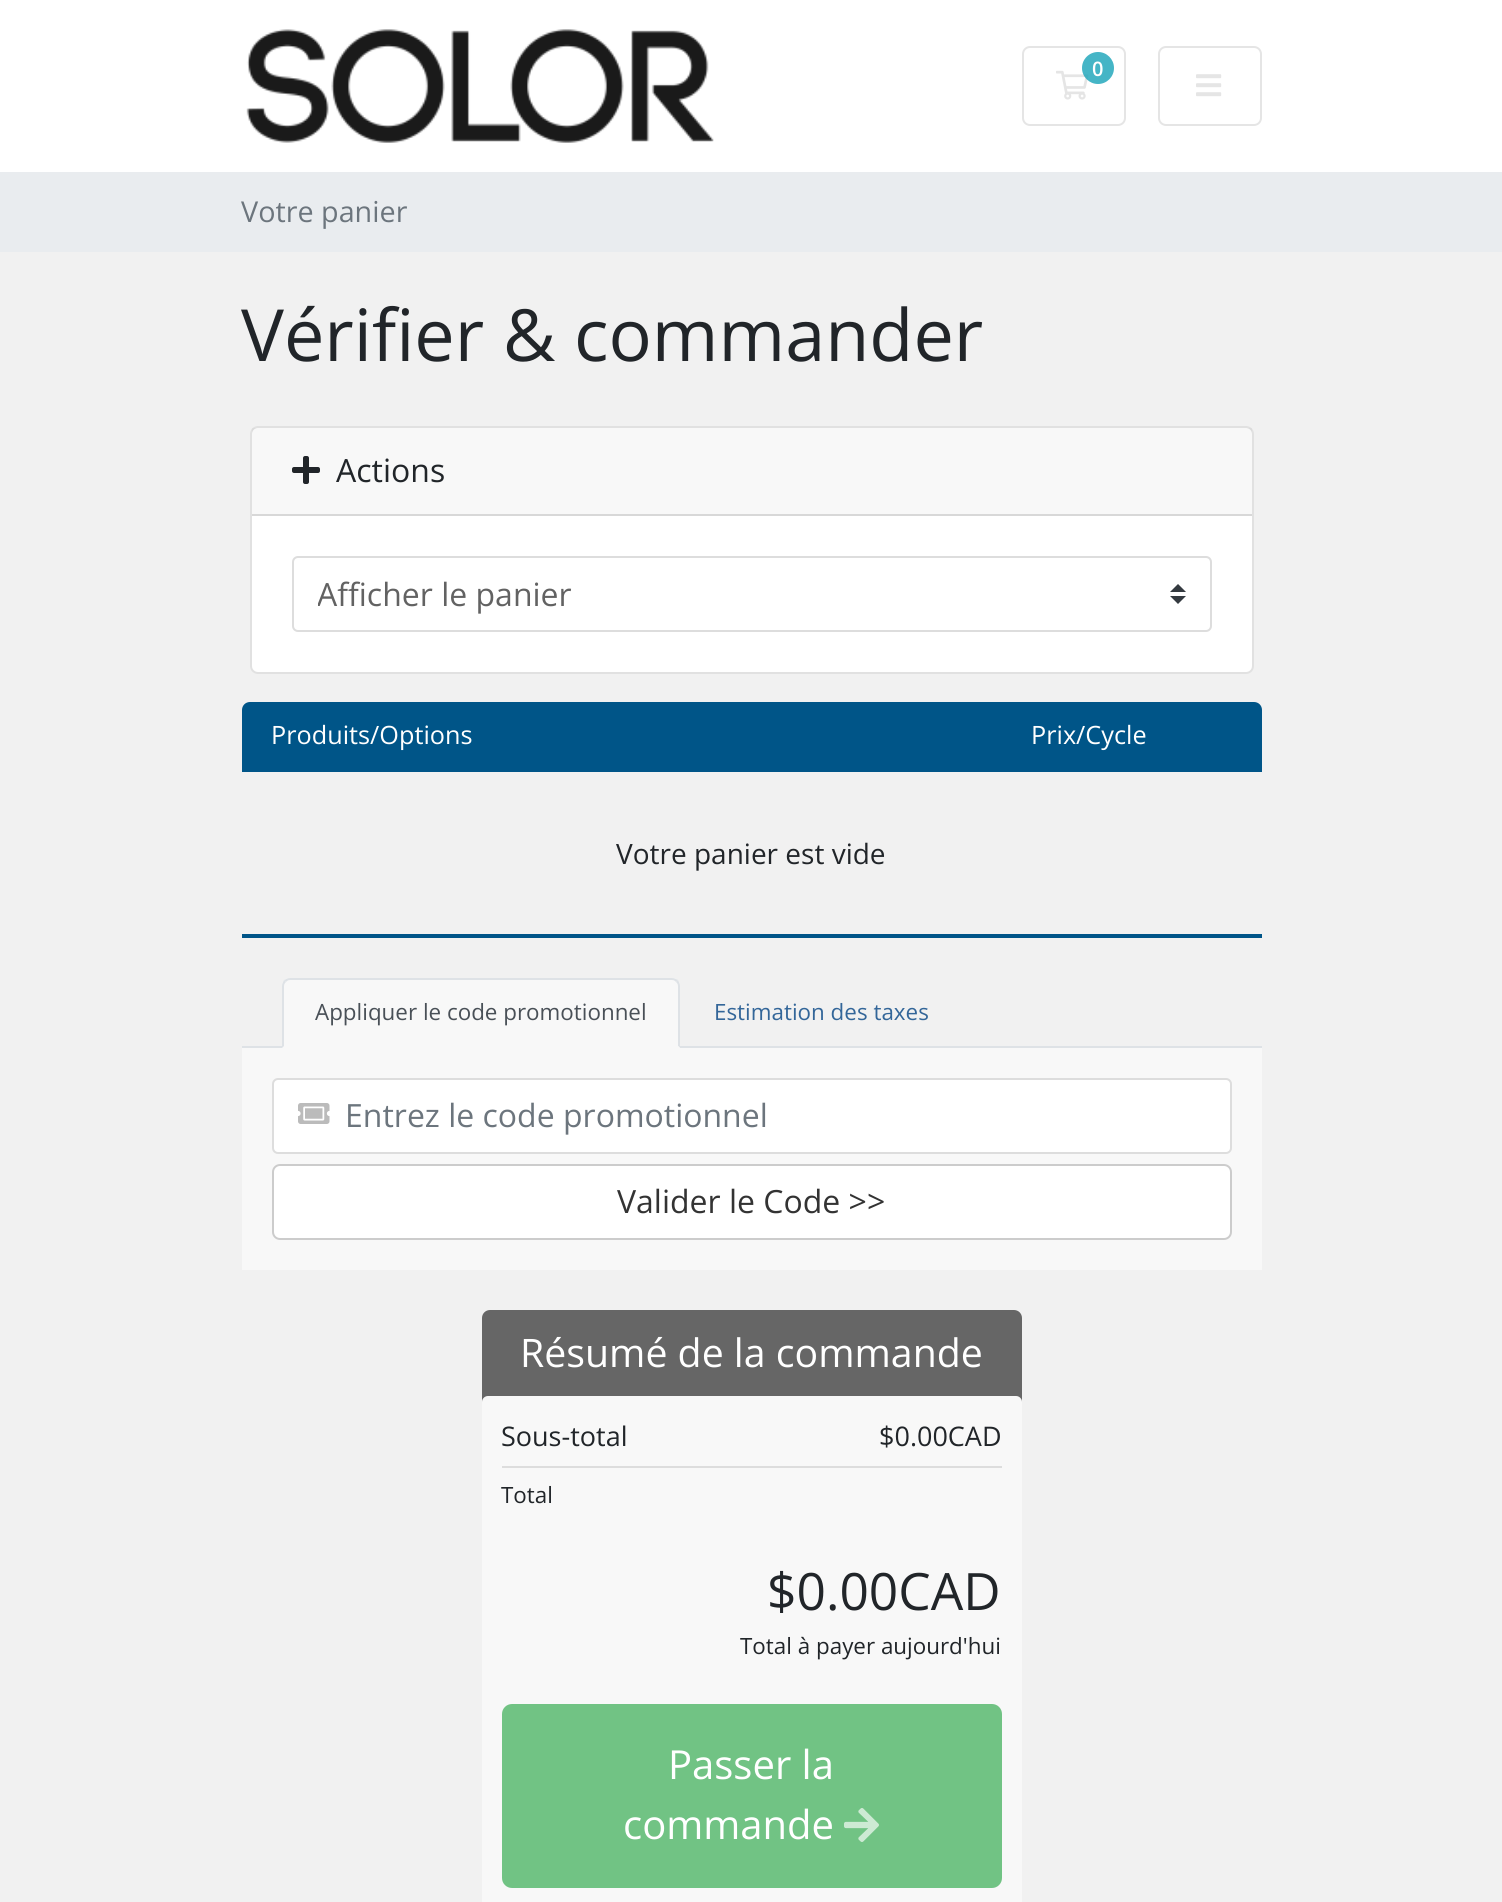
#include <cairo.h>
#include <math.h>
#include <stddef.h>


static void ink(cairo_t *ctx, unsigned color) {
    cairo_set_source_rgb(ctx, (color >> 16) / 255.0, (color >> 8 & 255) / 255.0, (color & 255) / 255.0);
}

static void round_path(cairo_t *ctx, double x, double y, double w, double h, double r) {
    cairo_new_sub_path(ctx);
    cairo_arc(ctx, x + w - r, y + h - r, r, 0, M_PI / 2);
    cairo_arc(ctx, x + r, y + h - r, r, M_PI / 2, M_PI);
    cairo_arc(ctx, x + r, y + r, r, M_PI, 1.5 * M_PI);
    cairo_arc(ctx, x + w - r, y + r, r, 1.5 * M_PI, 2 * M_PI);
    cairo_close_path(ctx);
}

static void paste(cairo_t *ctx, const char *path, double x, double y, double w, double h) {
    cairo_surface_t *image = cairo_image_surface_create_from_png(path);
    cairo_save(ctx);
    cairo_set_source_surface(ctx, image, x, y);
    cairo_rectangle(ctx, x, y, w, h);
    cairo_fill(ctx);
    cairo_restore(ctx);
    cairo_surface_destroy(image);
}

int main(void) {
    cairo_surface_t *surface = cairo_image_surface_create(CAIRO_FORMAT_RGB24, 1502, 1902);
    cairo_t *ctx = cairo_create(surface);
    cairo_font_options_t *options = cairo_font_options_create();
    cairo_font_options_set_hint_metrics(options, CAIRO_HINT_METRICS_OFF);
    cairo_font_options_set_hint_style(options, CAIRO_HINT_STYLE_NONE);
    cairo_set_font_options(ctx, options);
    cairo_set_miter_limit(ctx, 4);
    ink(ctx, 0xF1F1F1);
    cairo_paint(ctx);
    ink(ctx, 0xFFFFFF);
    cairo_rectangle(ctx, 0, 0, 1502, 172);
    cairo_fill(ctx);
    paste(ctx, "media/1.png", 246, 29, 468, 114);
    round_path(ctx, 1023, 47, 102, 78, 7);
    ink(ctx, 0xE5E5E5);
    cairo_stroke(ctx);
    paste(ctx, "media/2.png", 1056, 70, 33, 30);
    cairo_set_source_rgba(ctx, 0.09, 0.635, 0.722, 0.8);
    cairo_arc(ctx, 1098, 68, 16, 0, 2 * M_PI);
    cairo_fill(ctx);
    cairo_select_font_face(ctx, "Open Sans SemiBold", CAIRO_FONT_SLANT_NORMAL, CAIRO_FONT_WEIGHT_NORMAL);
    cairo_set_font_size(ctx, 20);
    ink(ctx, 0xFFFFFF);
    cairo_move_to(ctx, 1092, 76);
    cairo_show_text(ctx, "0");
    round_path(ctx, 1159, 47, 102, 78, 7);
    ink(ctx, 0xE5E5E5);
    cairo_stroke(ctx);
    paste(ctx, "media/3.png", 1196, 74, 26, 23);
    ink(ctx, 0xE9ECEF);
    cairo_rectangle(ctx, 0, 172, 1502, 80);
    cairo_fill(ctx);
    cairo_select_font_face(ctx, "Open Sans", CAIRO_FONT_SLANT_NORMAL, CAIRO_FONT_WEIGHT_NORMAL);
    cairo_set_font_size(ctx, 28.75);
    ink(ctx, 0x6C757D);
    cairo_move_to(ctx, 241, 222);
    cairo_show_text(ctx, "Votre panier");
    cairo_set_font_size(ctx, 72);
    ink(ctx, 0x212529);
    cairo_move_to(ctx, 241, 361);
    cairo_show_text(ctx, "Vérifier & commander");
    ink(ctx, 0xFFFFFF);
    round_path(ctx, 250, 426, 1004, 248, 8);
    cairo_fill(ctx);
    round_path(ctx, 251, 427, 1002, 246, 7);
    cairo_set_source_rgba(ctx, 0, 0, 0, 0.12);
    cairo_stroke(ctx);
    cairo_set_source_rgba(ctx, 0, 0, 0, 0.03);
    cairo_rectangle(ctx, 252, 428, 1000, 86);
    cairo_fill(ctx);
    ink(ctx, 0xD8D8D8);
    cairo_rectangle(ctx, 252, 514, 1000, 2);
    cairo_fill(ctx);
    paste(ctx, "media/4.png", 292, 456, 28, 28);
    cairo_set_font_size(ctx, 32);
    ink(ctx, 0x212529);
    cairo_move_to(ctx, 336, 482);
    cairo_show_text(ctx, "Actions");
    ink(ctx, 0x343A40);
    cairo_new_path(ctx);
    cairo_move_to(ctx, 1178, 584);
    cairo_line_to(ctx, 1170, 592);
    cairo_line_to(ctx, 1186, 592);
    cairo_close_path(ctx);
    cairo_move_to(ctx, 1178, 604);
    cairo_line_to(ctx, 1170, 596);
    cairo_line_to(ctx, 1186, 596);
    cairo_close_path(ctx);
    cairo_fill(ctx);
    round_path(ctx, 293, 557, 918, 74, 5);
    ink(ctx, 0xDDDDDD);
    cairo_stroke(ctx);
    cairo_save(ctx);
    cairo_rectangle(ctx, 318, 570, 836, 48);
    cairo_clip(ctx);
    ink(ctx, 0x626262);
    cairo_move_to(ctx, 317, 606);
    cairo_show_text(ctx, "Afficher le panier");
    cairo_restore(ctx);
    ink(ctx, 0x005588);
    cairo_new_path(ctx);
    cairo_move_to(ctx, 250, 702);
    cairo_line_to(ctx, 1254, 702);
    cairo_curve_to(ctx, 1258.5, 702, 1262, 705.5, 1262, 710);
    cairo_line_to(ctx, 1262, 772);
    cairo_line_to(ctx, 242, 772);
    cairo_line_to(ctx, 242, 710);
    cairo_curve_to(ctx, 242, 705.5, 245.5, 702, 250, 702);
    cairo_close_path(ctx);
    cairo_fill(ctx);
    cairo_set_font_size(ctx, 25.25);
    ink(ctx, 0xFFFFFF);
    cairo_move_to(ctx, 271, 744);
    cairo_show_text(ctx, "Produits/Options");
    cairo_move_to(ctx, 1031, 744);
    cairo_show_text(ctx, "Prix/Cycle");
    ink(ctx, 0x005588);
    cairo_rectangle(ctx, 242, 934, 1020, 4);
    cairo_fill(ctx);
    cairo_set_font_size(ctx, 28);
    ink(ctx, 0x212529);
    cairo_move_to(ctx, 616, 864);
    cairo_show_text(ctx, "Votre panier est vide");
    ink(ctx, 0xDEE2E6);
    cairo_rectangle(ctx, 242, 1046, 1020, 2);
    cairo_fill(ctx);
    ink(ctx, 0xF8F8F8);
    cairo_new_path(ctx);
    cairo_move_to(ctx, 290, 978);
    cairo_line_to(ctx, 672, 978);
    cairo_curve_to(ctx, 676.5, 978, 680, 981.5, 680, 986);
    cairo_line_to(ctx, 680, 1048);
    cairo_line_to(ctx, 282, 1048);
    cairo_line_to(ctx, 282, 986);
    cairo_curve_to(ctx, 282, 981.5, 285.5, 978, 290, 978);
    cairo_close_path(ctx);
    cairo_fill(ctx);
    ink(ctx, 0xDEE2E6);
    cairo_new_path(ctx);
    cairo_move_to(ctx, 290, 978);
    cairo_curve_to(ctx, 288, 978, 286, 979, 284, 980);
    cairo_line_to(ctx, 286, 982);
    cairo_curve_to(ctx, 287, 981, 288, 980, 290, 980);
    cairo_line_to(ctx, 672, 980);
    cairo_curve_to(ctx, 674, 980, 675, 981, 676, 982);
    cairo_line_to(ctx, 678, 980);
    cairo_curve_to(ctx, 676, 979, 674, 978, 672, 978);
    cairo_close_path(ctx);
    cairo_fill(ctx);
    cairo_new_path(ctx);
    cairo_move_to(ctx, 680, 1048);
    cairo_line_to(ctx, 680, 986);
    cairo_curve_to(ctx, 680, 984, 679, 982, 678, 980);
    cairo_line_to(ctx, 676, 982);
    cairo_curve_to(ctx, 677, 983, 678, 984, 678, 986);
    cairo_line_to(ctx, 678, 1046);
    cairo_close_path(ctx);
    cairo_fill(ctx);
    ink(ctx, 0xF8F8F8);
    cairo_new_path(ctx);
    cairo_move_to(ctx, 680, 1048);
    cairo_line_to(ctx, 678, 1046);
    cairo_line_to(ctx, 284, 1046);
    cairo_line_to(ctx, 282, 1048);
    cairo_close_path(ctx);
    cairo_fill(ctx);
    ink(ctx, 0xDEE2E6);
    cairo_new_path(ctx);
    cairo_move_to(ctx, 282, 1048);
    cairo_line_to(ctx, 284, 1046);
    cairo_line_to(ctx, 284, 986);
    cairo_curve_to(ctx, 284, 984, 285, 983, 286, 982);
    cairo_line_to(ctx, 284, 980);
    cairo_curve_to(ctx, 283, 982, 282, 984, 282, 986);
    cairo_close_path(ctx);
    cairo_fill(ctx);
    cairo_set_font_size(ctx, 22.4);
    ink(ctx, 0x495057);
    cairo_move_to(ctx, 315, 1020);
    cairo_show_text(ctx, "Appliquer le code promotionnel");
    ink(ctx, 0x336699);
    cairo_move_to(ctx, 714, 1020);
    cairo_show_text(ctx, "Estimation des taxes");
    ink(ctx, 0xF8F8F8);
    cairo_rectangle(ctx, 242, 1048, 1020, 222);
    cairo_fill(ctx);
    ink(ctx, 0xFFFFFF);
    round_path(ctx, 273, 1079, 958, 74, 5);
    cairo_fill_preserve(ctx);
    ink(ctx, 0xDDDDDD);
    cairo_stroke(ctx);
    paste(ctx, "media/5.png", 298, 1103, 32, 21);
    cairo_set_font_size(ctx, 32);
    ink(ctx, 0x6C757D);
    cairo_move_to(ctx, 345, 1127);
    cairo_show_text(ctx, "Entrez le code promotionnel");
    ink(ctx, 0xFFFFFF);
    round_path(ctx, 273, 1165, 958, 74, 7);
    cairo_fill_preserve(ctx);
    ink(ctx, 0xCCCCCC);
    cairo_stroke(ctx);
    ink(ctx, 0x333333);
    cairo_move_to(ctx, 617, 1213);
    cairo_show_text(ctx, "Valider le Code >>");
    ink(ctx, 0x666666);
    round_path(ctx, 482, 1310, 540, 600, 8);
    cairo_fill(ctx);
    cairo_set_font_size(ctx, 39.25);
    ink(ctx, 0xFFFFFF);
    cairo_move_to(ctx, 520, 1367);
    cairo_show_text(ctx, "Résumé de la commande");
    ink(ctx, 0xF8F8F8);
    round_path(ctx, 482, 1396, 540, 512, 6);
    cairo_fill(ctx);
    ink(ctx, 0xDDDDDD);
    cairo_rectangle(ctx, 502, 1466, 500, 2);
    cairo_fill(ctx);
    cairo_set_font_size(ctx, 27);
    ink(ctx, 0x212529);
    cairo_move_to(ctx, 501, 1446);
    cairo_show_text(ctx, "Sous-total");
    cairo_move_to(ctx, 879, 1446);
    cairo_show_text(ctx, "$0.00CAD");
    cairo_set_font_size(ctx, 22.4);
    cairo_move_to(ctx, 501, 1503);
    cairo_show_text(ctx, "Total");
    cairo_set_font_size(ctx, 51.5);
    cairo_move_to(ctx, 767, 1610);
    cairo_show_text(ctx, "$0.00CAD");
    cairo_set_font_size(ctx, 22.4);
    cairo_move_to(ctx, 740, 1654);
    cairo_show_text(ctx, "Total à payer aujourd'hui");
    ink(ctx, 0x71C384);
    round_path(ctx, 503, 1705, 498, 182, 9);
    cairo_fill_preserve(ctx);
    cairo_stroke(ctx);
    cairo_set_font_size(ctx, 40);
    ink(ctx, 0xFFFFFF);
    cairo_move_to(ctx, 668, 1779);
    cairo_show_text(ctx, "Passer la");
    cairo_move_to(ctx, 623, 1839);
    cairo_show_text(ctx, "commande");
    paste(ctx, "media/6.png", 844, 1808, 35, 34);
    cairo_surface_write_to_png(surface, "image.png");
    cairo_font_options_destroy(options);
    cairo_destroy(ctx);
    cairo_surface_destroy(surface);
    return 0;
}
